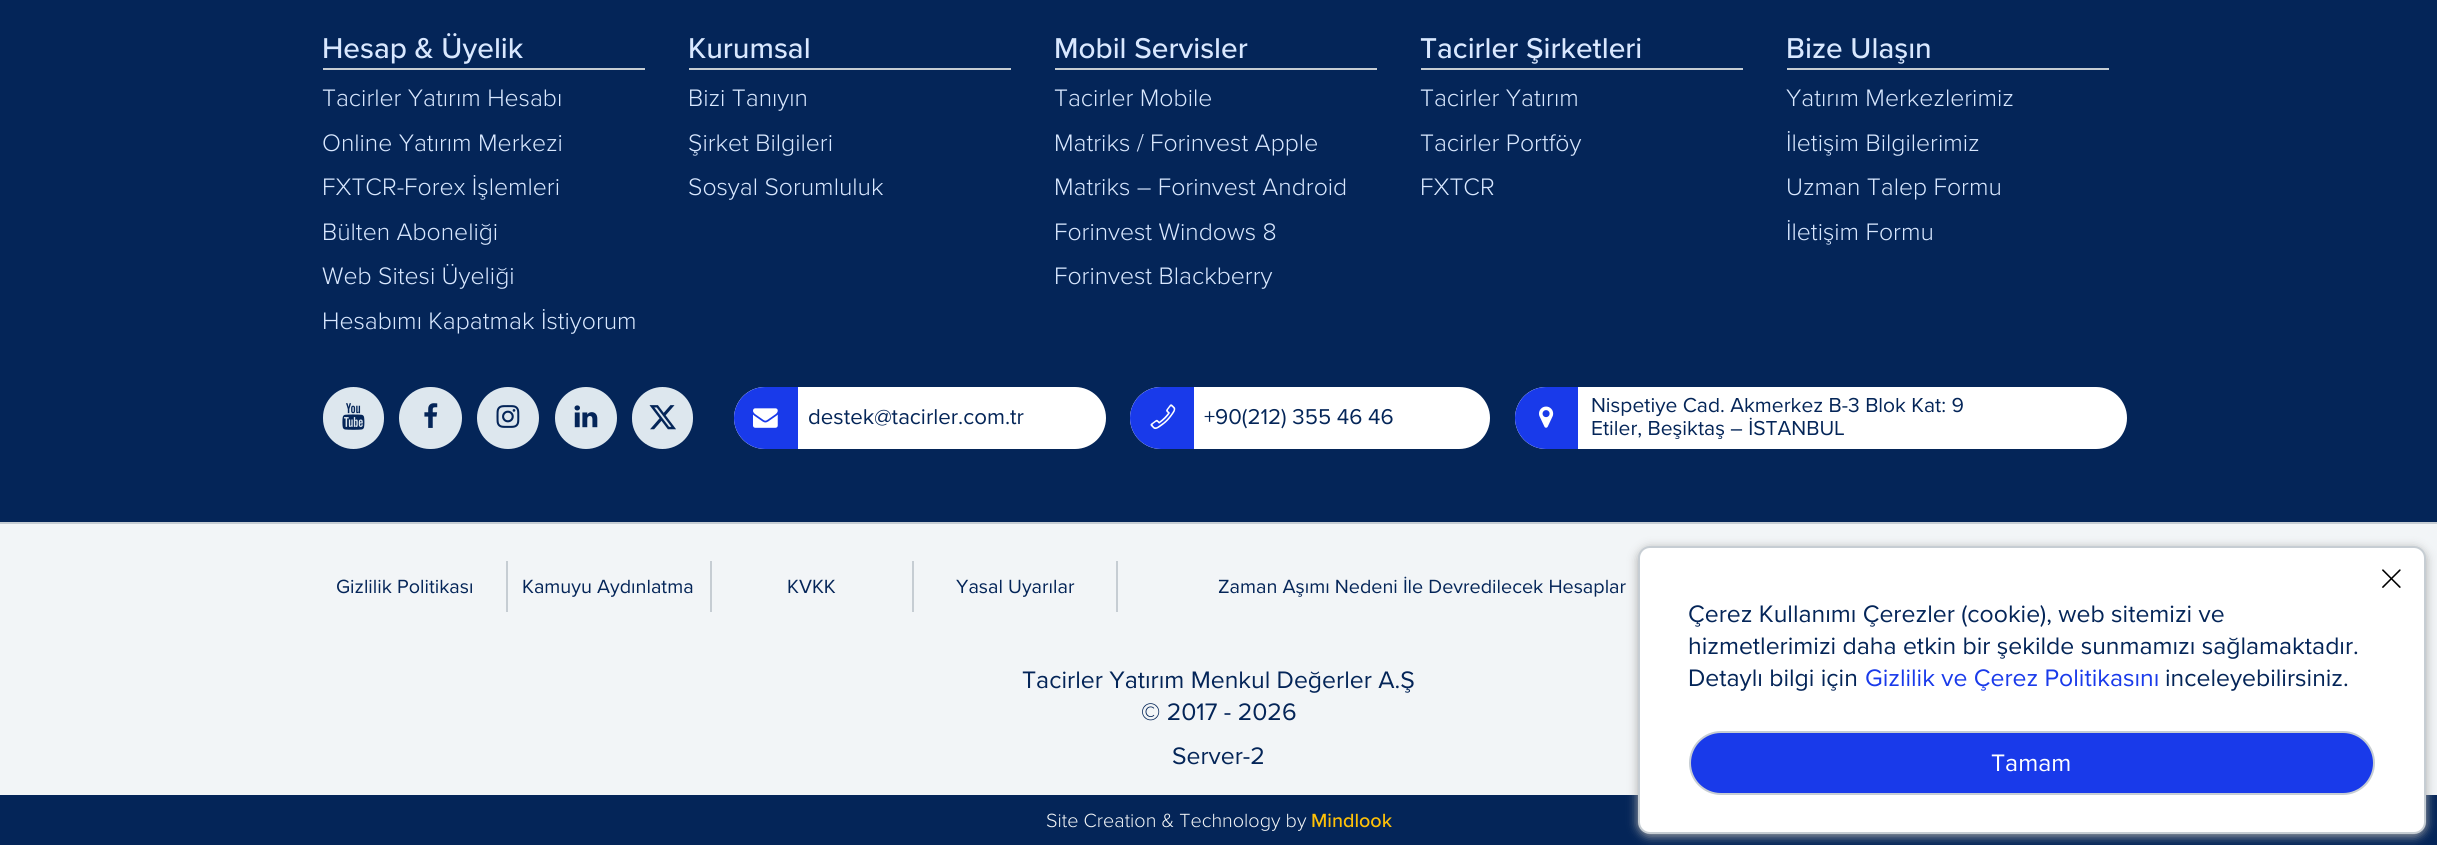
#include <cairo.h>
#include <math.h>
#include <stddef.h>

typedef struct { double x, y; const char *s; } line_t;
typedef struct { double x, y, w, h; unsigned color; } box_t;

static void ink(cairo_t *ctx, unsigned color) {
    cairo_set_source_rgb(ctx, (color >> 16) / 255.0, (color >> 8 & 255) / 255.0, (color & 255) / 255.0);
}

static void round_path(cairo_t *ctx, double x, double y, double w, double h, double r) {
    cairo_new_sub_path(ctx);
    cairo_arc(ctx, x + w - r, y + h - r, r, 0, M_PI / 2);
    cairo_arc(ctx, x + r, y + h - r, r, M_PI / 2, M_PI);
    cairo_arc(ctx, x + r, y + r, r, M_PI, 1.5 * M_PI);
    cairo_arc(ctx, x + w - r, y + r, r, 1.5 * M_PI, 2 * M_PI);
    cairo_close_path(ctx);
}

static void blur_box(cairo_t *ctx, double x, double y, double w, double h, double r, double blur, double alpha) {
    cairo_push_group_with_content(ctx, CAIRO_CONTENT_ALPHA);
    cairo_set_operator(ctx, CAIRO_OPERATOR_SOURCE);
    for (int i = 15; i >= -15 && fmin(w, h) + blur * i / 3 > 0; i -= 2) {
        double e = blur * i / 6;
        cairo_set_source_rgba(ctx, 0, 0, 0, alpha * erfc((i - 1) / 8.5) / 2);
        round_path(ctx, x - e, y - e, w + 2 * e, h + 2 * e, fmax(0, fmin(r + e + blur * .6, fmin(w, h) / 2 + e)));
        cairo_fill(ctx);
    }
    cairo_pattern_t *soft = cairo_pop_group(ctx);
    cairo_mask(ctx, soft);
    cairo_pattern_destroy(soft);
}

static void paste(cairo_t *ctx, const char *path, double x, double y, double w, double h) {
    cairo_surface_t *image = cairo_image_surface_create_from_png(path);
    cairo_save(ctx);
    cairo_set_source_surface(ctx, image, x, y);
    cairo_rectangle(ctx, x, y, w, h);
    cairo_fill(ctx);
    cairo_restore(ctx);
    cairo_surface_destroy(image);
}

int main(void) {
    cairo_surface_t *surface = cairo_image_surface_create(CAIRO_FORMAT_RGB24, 2437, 845);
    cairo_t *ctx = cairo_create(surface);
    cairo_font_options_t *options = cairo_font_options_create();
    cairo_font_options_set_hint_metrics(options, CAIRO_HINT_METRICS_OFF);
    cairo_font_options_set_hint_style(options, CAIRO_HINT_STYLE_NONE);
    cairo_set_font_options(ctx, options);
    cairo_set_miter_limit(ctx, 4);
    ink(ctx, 0x042558);
    cairo_paint(ctx);
    ink(ctx, 0xC6CDD3);
    cairo_rectangle(ctx, 323, 68, 322, 2);
    cairo_fill(ctx);
    cairo_select_font_face(ctx, "Proxima Nova Medium", CAIRO_FONT_SLANT_NORMAL, CAIRO_FONT_WEIGHT_NORMAL);
    cairo_set_font_size(ctx, 29.75);
    ink(ctx, 0xD9E8FF);
    cairo_move_to(ctx, 322, 58);
    cairo_show_text(ctx, "Hesap & Üyelik");
    cairo_select_font_face(ctx, "Proxima Nova Light", CAIRO_FONT_SLANT_NORMAL, CAIRO_FONT_WEIGHT_NORMAL);
    cairo_set_font_size(ctx, 24.75);
    {
        static const line_t items[] = {
            {322, 106, "Tacirler Yatırım Hesabı"},
            {322, 151, "Online Yatırım Merkezi"},
            {322, 195, "FXTCR-Forex İşlemleri"},
            {322, 240, "Bülten Aboneliği"},
            {322, 284, "Web Sitesi Üyeliği"},
            {322, 329, "Hesabımı Kapatmak İstiyorum"},
        };
        for (size_t i = 0; i < sizeof items / sizeof *items; i++) {
            cairo_move_to(ctx, items[i].x, items[i].y);
            cairo_show_text(ctx, items[i].s);
        }
    }
    ink(ctx, 0xC6CDD3);
    cairo_rectangle(ctx, 689, 68, 322, 2);
    cairo_fill(ctx);
    cairo_select_font_face(ctx, "Proxima Nova Medium", CAIRO_FONT_SLANT_NORMAL, CAIRO_FONT_WEIGHT_NORMAL);
    cairo_set_font_size(ctx, 29.75);
    ink(ctx, 0xD9E8FF);
    cairo_move_to(ctx, 688, 58);
    cairo_show_text(ctx, "Kurumsal");
    cairo_select_font_face(ctx, "Proxima Nova Light", CAIRO_FONT_SLANT_NORMAL, CAIRO_FONT_WEIGHT_NORMAL);
    cairo_set_font_size(ctx, 24.75);
    {
        static const line_t items[] = {
            {688, 106, "Bizi Tanıyın"},
            {688, 151, "Şirket Bilgileri"},
            {688, 195, "Sosyal Sorumluluk"},
        };
        for (size_t i = 0; i < sizeof items / sizeof *items; i++) {
            cairo_move_to(ctx, items[i].x, items[i].y);
            cairo_show_text(ctx, items[i].s);
        }
    }
    ink(ctx, 0xC6CDD3);
    cairo_rectangle(ctx, 1055, 68, 322, 2);
    cairo_fill(ctx);
    cairo_select_font_face(ctx, "Proxima Nova Medium", CAIRO_FONT_SLANT_NORMAL, CAIRO_FONT_WEIGHT_NORMAL);
    cairo_set_font_size(ctx, 29.75);
    ink(ctx, 0xD9E8FF);
    cairo_move_to(ctx, 1054, 58);
    cairo_show_text(ctx, "Mobil Servisler");
    cairo_select_font_face(ctx, "Proxima Nova Light", CAIRO_FONT_SLANT_NORMAL, CAIRO_FONT_WEIGHT_NORMAL);
    cairo_set_font_size(ctx, 24.75);
    {
        static const line_t items[] = {
            {1054, 106, "Tacirler Mobile"},
            {1054, 151, "Matriks / Forinvest Apple"},
            {1054, 195, "Matriks – Forinvest Android"},
            {1054, 240, "Forinvest Windows 8"},
            {1054, 284, "Forinvest Blackberry"},
        };
        for (size_t i = 0; i < sizeof items / sizeof *items; i++) {
            cairo_move_to(ctx, items[i].x, items[i].y);
            cairo_show_text(ctx, items[i].s);
        }
    }
    ink(ctx, 0xC6CDD3);
    cairo_rectangle(ctx, 1421, 68, 322, 2);
    cairo_fill(ctx);
    cairo_select_font_face(ctx, "Proxima Nova Medium", CAIRO_FONT_SLANT_NORMAL, CAIRO_FONT_WEIGHT_NORMAL);
    cairo_set_font_size(ctx, 29.75);
    ink(ctx, 0xD9E8FF);
    cairo_move_to(ctx, 1420, 58);
    cairo_show_text(ctx, "Tacirler Şirketleri");
    cairo_select_font_face(ctx, "Proxima Nova Light", CAIRO_FONT_SLANT_NORMAL, CAIRO_FONT_WEIGHT_NORMAL);
    cairo_set_font_size(ctx, 24.75);
    {
        static const line_t items[] = {
            {1420, 106, "Tacirler Yatırım"},
            {1420, 151, "Tacirler Portföy"},
            {1420, 195, "FXTCR"},
        };
        for (size_t i = 0; i < sizeof items / sizeof *items; i++) {
            cairo_move_to(ctx, items[i].x, items[i].y);
            cairo_show_text(ctx, items[i].s);
        }
    }
    ink(ctx, 0xC6CDD3);
    cairo_rectangle(ctx, 1787, 68, 322, 2);
    cairo_fill(ctx);
    cairo_select_font_face(ctx, "Proxima Nova Medium", CAIRO_FONT_SLANT_NORMAL, CAIRO_FONT_WEIGHT_NORMAL);
    cairo_set_font_size(ctx, 29.75);
    ink(ctx, 0xD9E8FF);
    cairo_move_to(ctx, 1786, 58);
    cairo_show_text(ctx, "Bize Ulaşın");
    cairo_select_font_face(ctx, "Proxima Nova Light", CAIRO_FONT_SLANT_NORMAL, CAIRO_FONT_WEIGHT_NORMAL);
    cairo_set_font_size(ctx, 24.75);
    {
        static const line_t items[] = {
            {1786, 106, "Yatırım Merkezlerimiz"},
            {1786, 151, "İletişim Bilgilerimiz"},
            {1786, 195, "Uzman Talep Formu"},
            {1786, 240, "İletişim Formu"},
        };
        for (size_t i = 0; i < sizeof items / sizeof *items; i++) {
            cairo_move_to(ctx, items[i].x, items[i].y);
            cairo_show_text(ctx, items[i].s);
        }
    }
    ink(ctx, 0xDDE7EE);
    round_path(ctx, 323, 387, 61, 62, 30.5);
    cairo_fill(ctx);
    paste(ctx, "media/1.png", 342, 403, 23, 27);
    round_path(ctx, 399, 387, 63, 62, 31);
    cairo_fill(ctx);
    paste(ctx, "media/2.png", 424, 403, 14, 25);
    cairo_arc(ctx, 508, 418, 31, 0, 2 * M_PI);
    cairo_fill(ctx);
    paste(ctx, "media/3.png", 496, 405, 24, 23);
    cairo_arc(ctx, 586, 418, 31, 0, 2 * M_PI);
    cairo_fill(ctx);
    paste(ctx, "media/4.png", 574, 405, 24, 23);
    round_path(ctx, 632, 387, 61, 62, 30.5);
    cairo_fill(ctx);
    paste(ctx, "media/5.png", 649, 405, 27, 25);
    ink(ctx, 0xFFFFFF);
    round_path(ctx, 734, 387, 372, 62, 31);
    cairo_fill(ctx);
    ink(ctx, 0x193AEA);
    cairo_new_path(ctx);
    cairo_move_to(ctx, 765, 387);
    cairo_line_to(ctx, 798, 387);
    cairo_line_to(ctx, 798, 449);
    cairo_line_to(ctx, 765, 449);
    cairo_curve_to(ctx, 748, 449, 734, 435, 734, 418);
    cairo_curve_to(ctx, 734, 401, 748, 387, 765, 387);
    cairo_close_path(ctx);
    cairo_fill(ctx);
    paste(ctx, "media/6.png", 753, 408, 25, 20);
    cairo_select_font_face(ctx, "Proxima Nova", CAIRO_FONT_SLANT_NORMAL, CAIRO_FONT_WEIGHT_NORMAL);
    cairo_set_font_size(ctx, 22.25);
    ink(ctx, 0x042558);
    cairo_move_to(ctx, 808, 424);
    cairo_show_text(ctx, "destek@tacirler.com.tr");
    ink(ctx, 0xFFFFFF);
    round_path(ctx, 1130, 387, 360, 62, 31);
    cairo_fill(ctx);
    ink(ctx, 0x193AEA);
    cairo_new_path(ctx);
    cairo_move_to(ctx, 1161, 387);
    cairo_line_to(ctx, 1194, 387);
    cairo_line_to(ctx, 1194, 449);
    cairo_line_to(ctx, 1161, 449);
    cairo_curve_to(ctx, 1144, 449, 1130, 435, 1130, 418);
    cairo_curve_to(ctx, 1130, 401, 1144, 387, 1161, 387);
    cairo_close_path(ctx);
    cairo_fill(ctx);
    paste(ctx, "media/7.png", 1150, 404, 26, 26);
    ink(ctx, 0x042558);
    cairo_move_to(ctx, 1204, 424);
    cairo_show_text(ctx, "+90(212) 355 46 46");
    ink(ctx, 0xFFFFFF);
    round_path(ctx, 1515, 387, 612, 62, 31);
    cairo_fill(ctx);
    ink(ctx, 0x193AEA);
    cairo_new_path(ctx);
    cairo_move_to(ctx, 1546, 387);
    cairo_line_to(ctx, 1578, 387);
    cairo_line_to(ctx, 1578, 449);
    cairo_line_to(ctx, 1546, 449);
    cairo_curve_to(ctx, 1529, 449, 1515, 435, 1515, 418);
    cairo_curve_to(ctx, 1515, 401, 1529, 387, 1546, 387);
    cairo_close_path(ctx);
    cairo_fill(ctx);
    paste(ctx, "media/8.png", 1539, 406, 15, 22);
    cairo_set_font_size(ctx, 21);
    ink(ctx, 0x042558);
    cairo_move_to(ctx, 1591, 412);
    cairo_show_text(ctx, "Nispetiye Cad. Akmerkez B-3 Blok Kat: 9");
    cairo_move_to(ctx, 1591, 435);
    cairo_show_text(ctx, "Etiler, Beşiktaş – İSTANBUL");
    {
        static const box_t items[] = {
            {0, 524, 2437, 271, 0xF2F5F7},
            {0, 522, 2437, 2, 0xC6CDD3},
            {506, 561, 2, 51, 0xC6CDD3},
        };
        for (size_t i = 0; i < sizeof items / sizeof *items; i++) {
            ink(ctx, items[i].color);
            cairo_rectangle(ctx, items[i].x, items[i].y, items[i].w, items[i].h);
            cairo_fill(ctx);
        }
    }
    cairo_set_font_size(ctx, 19.8);
    ink(ctx, 0x042558);
    cairo_move_to(ctx, 336, 593);
    cairo_show_text(ctx, "Gizlilik Politikası");
    ink(ctx, 0xC6CDD3);
    cairo_rectangle(ctx, 710, 561, 2, 51);
    cairo_fill(ctx);
    ink(ctx, 0x042558);
    cairo_move_to(ctx, 522, 593);
    cairo_show_text(ctx, "Kamuyu Aydınlatma");
    ink(ctx, 0xC6CDD3);
    cairo_rectangle(ctx, 912, 561, 2, 51);
    cairo_fill(ctx);
    ink(ctx, 0x042558);
    cairo_move_to(ctx, 787, 593);
    cairo_show_text(ctx, "KVKK");
    ink(ctx, 0xC6CDD3);
    cairo_rectangle(ctx, 1116, 561, 2, 51);
    cairo_fill(ctx);
    ink(ctx, 0x042558);
    cairo_move_to(ctx, 956, 593);
    cairo_show_text(ctx, "Yasal Uyarılar");
    cairo_move_to(ctx, 1218, 593);
    cairo_show_text(ctx, "Zaman Aşımı Nedeni İle Devredilecek Hesaplar");
    cairo_set_font_size(ctx, 24.75);
    {
        static const line_t items[] = {
            {1022, 688, "Tacirler Yatırım Menkul Değerler A.Ş"},
            {1141, 720, "© 2017 - 2026"},
            {1172, 764, "Server-2"},
        };
        for (size_t i = 0; i < sizeof items / sizeof *items; i++) {
            cairo_move_to(ctx, items[i].x, items[i].y);
            cairo_show_text(ctx, items[i].s);
        }
    }
    cairo_select_font_face(ctx, "Proxima Nova Light", CAIRO_FONT_SLANT_NORMAL, CAIRO_FONT_WEIGHT_NORMAL);
    cairo_set_font_size(ctx, 19.8);
    ink(ctx, 0xF2F5F7);
    cairo_move_to(ctx, 1046, 827);
    cairo_show_text(ctx, "Site Creation & Technology by");
    cairo_select_font_face(ctx, "Proxima Nova Medium", CAIRO_FONT_SLANT_NORMAL, CAIRO_FONT_WEIGHT_NORMAL);
    ink(ctx, 0xFFC107);
    cairo_move_to(ctx, 1311, 827);
    cairo_show_text(ctx, "Mindlook");
    ink(ctx, 0xAAAAAA);
    blur_box(ctx, 1638, 548, 788, 288, 12, 5, 1);
    ink(ctx, 0xFFFFFF);
    round_path(ctx, 1639, 547, 786, 286, 11);
    cairo_fill_preserve(ctx);
    ink(ctx, 0xC6CDD3);
    cairo_stroke(ctx);
    paste(ctx, "media/9.png", 2382, 569, 19, 19);
    cairo_select_font_face(ctx, "Proxima Nova", CAIRO_FONT_SLANT_NORMAL, CAIRO_FONT_WEIGHT_NORMAL);
    cairo_set_font_size(ctx, 24.75);
    ink(ctx, 0x042558);
    {
        static const line_t items[] = {
            {1688, 622, "Çerez Kullanımı Çerezler (cookie), web sitemizi ve"},
            {1688, 654, "hizmetlerimizi daha etkin bir şekilde sunmamızı sağlamaktadır."},
            {1688, 686, "Detaylı bilgi için"},
        };
        for (size_t i = 0; i < sizeof items / sizeof *items; i++) {
            cairo_move_to(ctx, items[i].x, items[i].y);
            cairo_show_text(ctx, items[i].s);
        }
    }
    ink(ctx, 0x193AEA);
    cairo_move_to(ctx, 1865, 686);
    cairo_show_text(ctx, "Gizlilik ve Çerez Politikasını");
    ink(ctx, 0x042558);
    cairo_move_to(ctx, 2165, 686);
    cairo_show_text(ctx, "inceleyebilirsiniz.");
    ink(ctx, 0x193AEA);
    round_path(ctx, 1690, 732, 684, 62, 31);
    cairo_fill_preserve(ctx);
    ink(ctx, 0xC6CDD3);
    cairo_stroke(ctx);
    ink(ctx, 0xFFFFFF);
    cairo_move_to(ctx, 1991, 771);
    cairo_show_text(ctx, "Tamam");
    cairo_surface_write_to_png(surface, "image.png");
    cairo_font_options_destroy(options);
    cairo_destroy(ctx);
    cairo_surface_destroy(surface);
    return 0;
}
